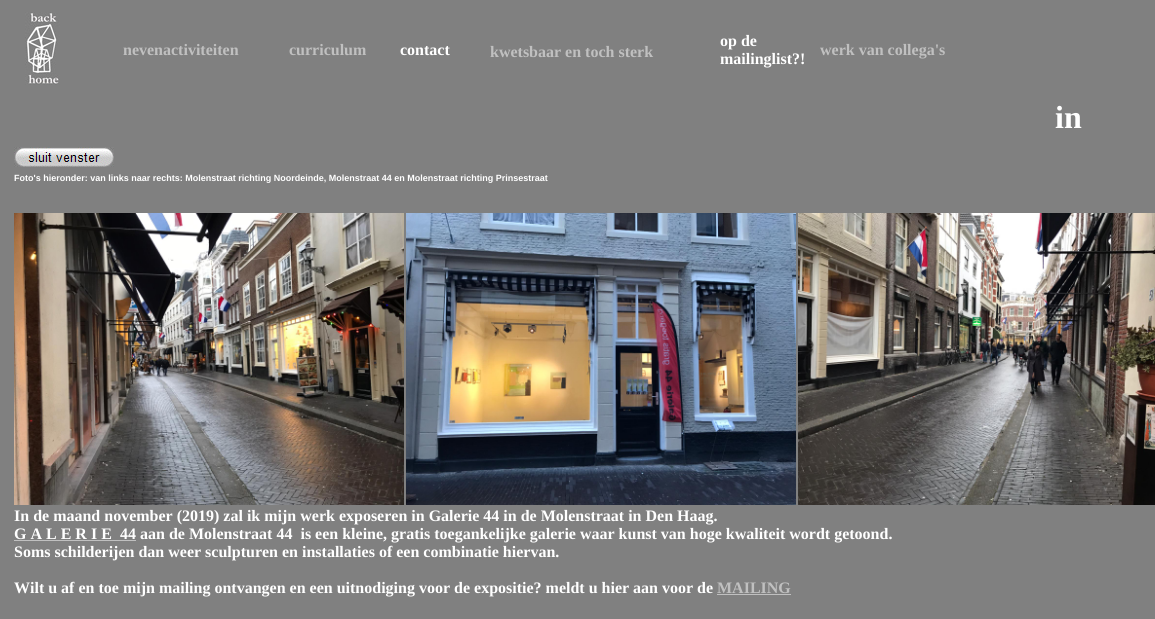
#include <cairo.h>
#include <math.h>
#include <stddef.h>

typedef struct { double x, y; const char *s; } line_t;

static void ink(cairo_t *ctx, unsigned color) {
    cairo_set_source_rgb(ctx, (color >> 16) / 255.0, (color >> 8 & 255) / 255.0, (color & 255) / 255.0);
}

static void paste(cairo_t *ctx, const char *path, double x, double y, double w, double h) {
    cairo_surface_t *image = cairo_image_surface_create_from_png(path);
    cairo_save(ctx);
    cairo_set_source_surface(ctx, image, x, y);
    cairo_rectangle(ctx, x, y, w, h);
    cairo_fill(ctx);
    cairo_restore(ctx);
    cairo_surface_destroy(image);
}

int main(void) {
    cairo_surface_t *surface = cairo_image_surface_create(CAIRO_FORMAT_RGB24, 1155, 619);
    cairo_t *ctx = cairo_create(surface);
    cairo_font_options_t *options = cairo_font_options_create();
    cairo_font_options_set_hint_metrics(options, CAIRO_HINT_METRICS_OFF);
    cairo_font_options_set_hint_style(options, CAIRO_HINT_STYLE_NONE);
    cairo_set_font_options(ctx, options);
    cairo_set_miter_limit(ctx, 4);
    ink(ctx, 0x808080);
    cairo_paint(ctx);
    paste(ctx, "media/1.png", 25, 12, 35, 73);
    cairo_select_font_face(ctx, "Liberation Serif", CAIRO_FONT_SLANT_NORMAL, CAIRO_FONT_WEIGHT_BOLD);
    cairo_set_font_size(ctx, 16);
    ink(ctx, 0xC0C0C0);
    cairo_move_to(ctx, 123, 55);
    cairo_show_text(ctx, "nevenactiviteiten");
    cairo_move_to(ctx, 289, 55);
    cairo_show_text(ctx, "curriculum");
    ink(ctx, 0xFFFFFF);
    cairo_move_to(ctx, 400, 55);
    cairo_show_text(ctx, "contact");
    ink(ctx, 0xC0C0C0);
    cairo_move_to(ctx, 490, 57);
    cairo_show_text(ctx, "kwetsbaar en toch sterk");
    ink(ctx, 0xFFFFFF);
    cairo_move_to(ctx, 720, 46);
    cairo_show_text(ctx, "op de");
    cairo_move_to(ctx, 720, 64);
    cairo_show_text(ctx, "mailinglist?!");
    ink(ctx, 0xC0C0C0);
    cairo_move_to(ctx, 820, 55);
    cairo_show_text(ctx, "werk van collega's");
    cairo_set_font_size(ctx, 32);
    ink(ctx, 0xFFFFFF);
    cairo_move_to(ctx, 1055, 128);
    cairo_show_text(ctx, "in");
    paste(ctx, "media/2.png", 14, 147, 100, 20);
    cairo_select_font_face(ctx, "Liberation Sans", CAIRO_FONT_SLANT_NORMAL, CAIRO_FONT_WEIGHT_BOLD);
    cairo_set_font_size(ctx, 9);
    cairo_move_to(ctx, 14, 181);
    cairo_show_text(ctx, "Foto's hieronder: van links naar rechts: Molenstraat richting Noordeinde, Molenstraat 44 en Molenstraat richting Prinsestraat");
    paste(ctx, "media/3.png", 14, 213, 390, 292);
    paste(ctx, "media/4.png", 406, 213, 390, 292);
    paste(ctx, "media/5.png", 798, 213, 357, 292);
    cairo_select_font_face(ctx, "Liberation Serif", CAIRO_FONT_SLANT_NORMAL, CAIRO_FONT_WEIGHT_BOLD);
    cairo_set_font_size(ctx, 16);
    cairo_move_to(ctx, 14, 521);
    cairo_show_text(ctx, "In de maand november (2019) zal ik mijn werk exposeren in Galerie 44 in de Molenstraat in Den Haag.");
    cairo_move_to(ctx, 14, 539);
    cairo_show_text(ctx, "G A L E R I E");
    ink(ctx, 0xC0C0C0);
    cairo_rectangle(ctx, 14, 540, 122, 1);
    cairo_fill(ctx);
    ink(ctx, 0xFFFFFF);
    {
        static const line_t items[] = {
            {120, 539, "44 aan de Molenstraat 44  is een kleine, gratis toegankelijke galerie waar kunst van hoge kwaliteit wordt getoond."},
            {14, 557, "Soms schilderijen dan weer sculpturen en installaties of een combinatie hiervan."},
            {14, 593, "Wilt u af en toe mijn mailing ontvangen en een uitnodiging voor de expositie? meldt u hier aan voor de"},
        };
        for (size_t i = 0; i < sizeof items / sizeof *items; i++) {
            cairo_move_to(ctx, items[i].x, items[i].y);
            cairo_show_text(ctx, items[i].s);
        }
    }
    ink(ctx, 0xC0C0C0);
    cairo_move_to(ctx, 717, 593);
    cairo_show_text(ctx, "MAILING");
    cairo_rectangle(ctx, 717, 594, 74, 1);
    cairo_fill(ctx);
    cairo_surface_write_to_png(surface, "image.png");
    cairo_font_options_destroy(options);
    cairo_destroy(ctx);
    cairo_surface_destroy(surface);
    return 0;
}
